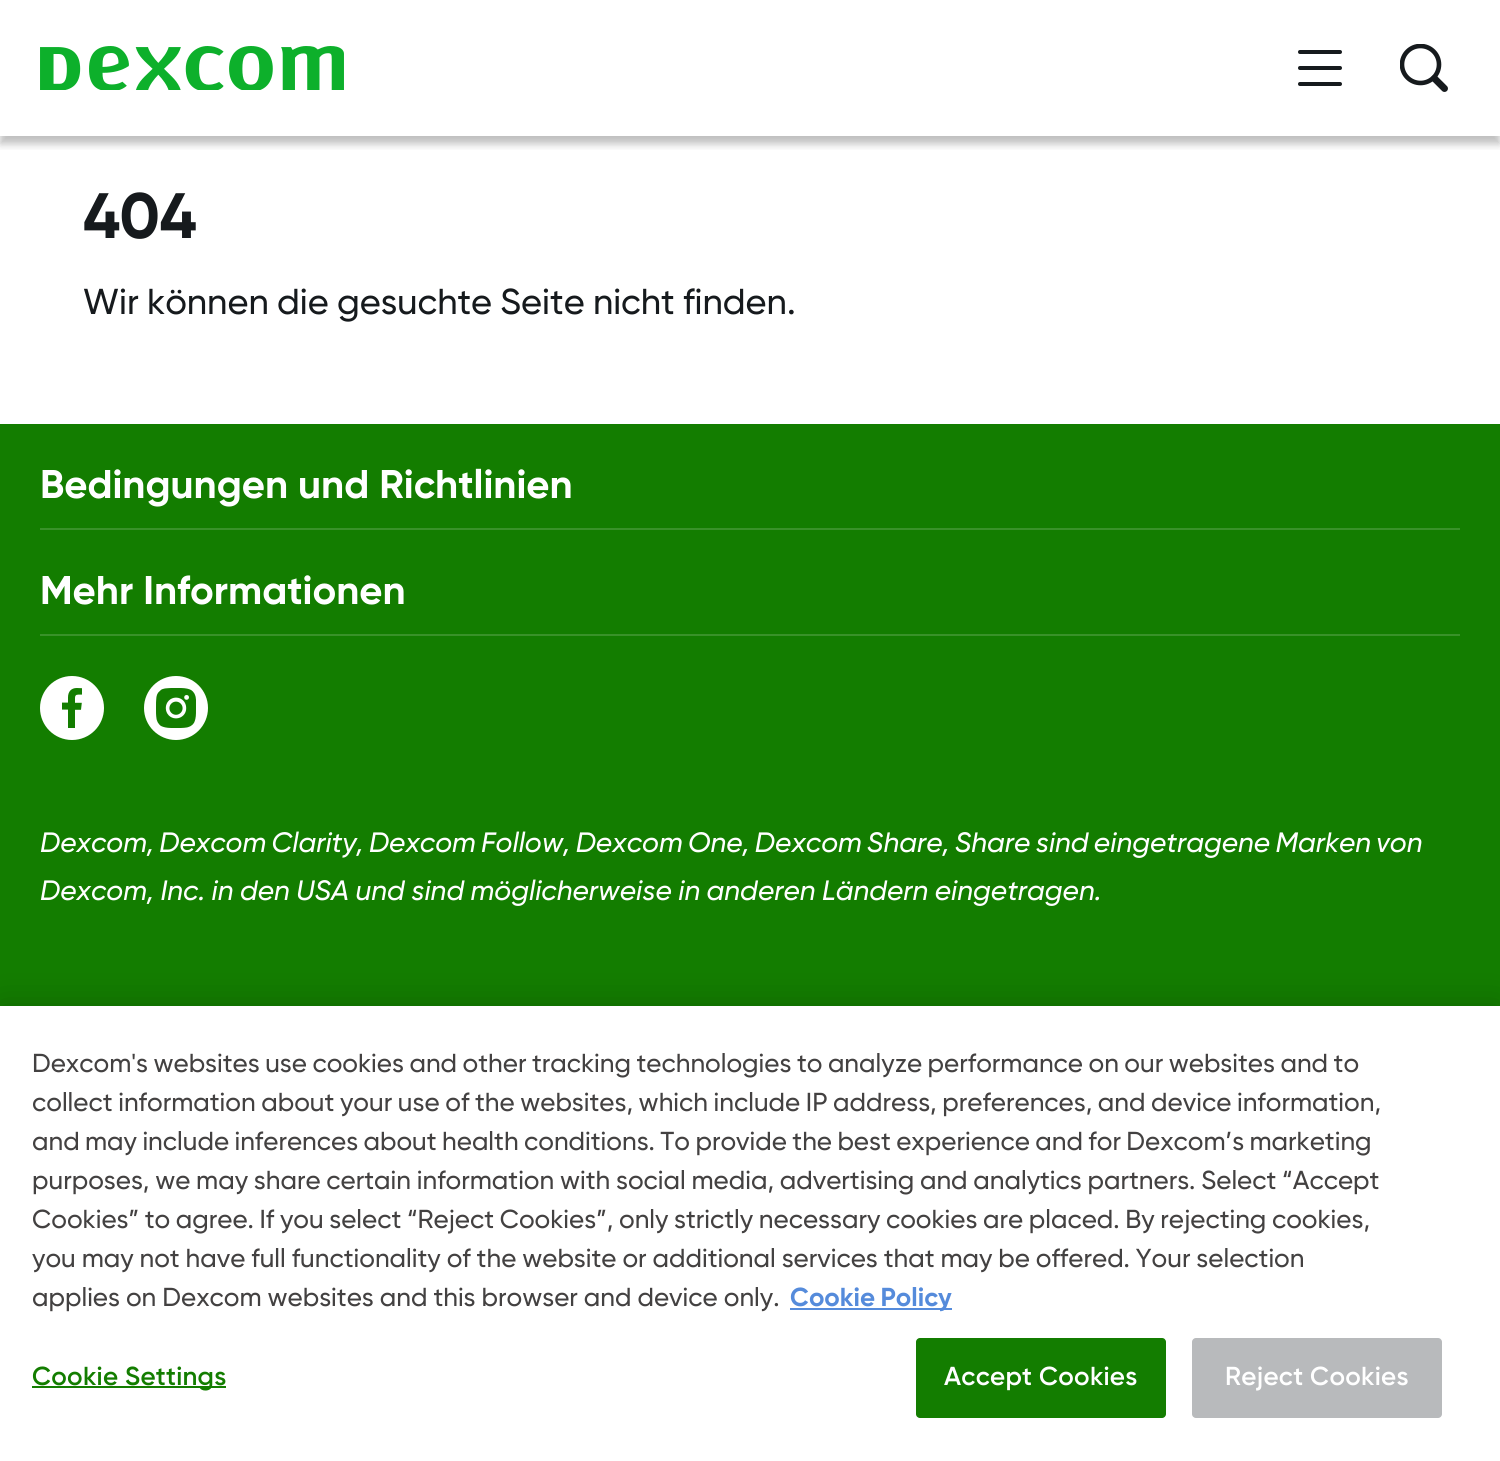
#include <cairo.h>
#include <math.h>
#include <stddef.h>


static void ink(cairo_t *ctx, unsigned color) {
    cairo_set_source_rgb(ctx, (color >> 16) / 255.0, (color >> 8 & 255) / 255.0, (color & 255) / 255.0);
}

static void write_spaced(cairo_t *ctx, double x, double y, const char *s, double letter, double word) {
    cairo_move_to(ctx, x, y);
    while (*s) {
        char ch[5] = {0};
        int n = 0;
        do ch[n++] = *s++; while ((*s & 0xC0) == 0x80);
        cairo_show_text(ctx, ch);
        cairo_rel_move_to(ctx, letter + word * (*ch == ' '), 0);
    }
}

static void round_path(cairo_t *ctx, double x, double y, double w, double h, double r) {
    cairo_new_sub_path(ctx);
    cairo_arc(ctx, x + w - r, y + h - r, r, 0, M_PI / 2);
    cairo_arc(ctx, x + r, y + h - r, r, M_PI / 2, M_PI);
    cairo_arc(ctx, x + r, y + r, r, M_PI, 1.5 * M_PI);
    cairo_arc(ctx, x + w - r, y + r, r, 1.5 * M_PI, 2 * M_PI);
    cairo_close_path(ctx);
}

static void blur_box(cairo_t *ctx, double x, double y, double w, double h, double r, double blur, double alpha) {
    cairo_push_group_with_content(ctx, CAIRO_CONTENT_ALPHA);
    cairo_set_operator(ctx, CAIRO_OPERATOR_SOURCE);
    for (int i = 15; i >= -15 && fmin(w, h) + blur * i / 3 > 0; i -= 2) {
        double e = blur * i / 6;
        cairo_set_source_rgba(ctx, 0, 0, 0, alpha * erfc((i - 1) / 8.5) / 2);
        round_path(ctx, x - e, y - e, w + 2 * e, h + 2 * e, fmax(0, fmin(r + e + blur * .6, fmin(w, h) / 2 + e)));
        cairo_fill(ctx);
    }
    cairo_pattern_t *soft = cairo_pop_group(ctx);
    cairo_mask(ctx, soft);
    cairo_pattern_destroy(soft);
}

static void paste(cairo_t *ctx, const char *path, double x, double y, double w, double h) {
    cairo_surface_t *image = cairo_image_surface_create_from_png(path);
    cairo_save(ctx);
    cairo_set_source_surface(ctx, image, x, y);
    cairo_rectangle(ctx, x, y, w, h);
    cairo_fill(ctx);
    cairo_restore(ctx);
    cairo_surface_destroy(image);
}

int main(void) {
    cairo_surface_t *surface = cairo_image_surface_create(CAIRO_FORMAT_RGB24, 1500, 1461);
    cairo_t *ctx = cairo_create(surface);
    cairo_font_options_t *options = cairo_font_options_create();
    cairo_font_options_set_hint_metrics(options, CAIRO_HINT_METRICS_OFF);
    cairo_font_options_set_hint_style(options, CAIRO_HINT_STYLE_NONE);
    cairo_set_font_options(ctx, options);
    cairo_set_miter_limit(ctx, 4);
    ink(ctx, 0xFFFFFF);
    cairo_paint(ctx);
    cairo_save(ctx);
    cairo_rectangle(ctx, 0, 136, 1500, 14);
    cairo_clip(ctx);
    ink(ctx, 0x000000);
    blur_box(ctx, 0, 8, 1500, 136, 0, 4, 0.25);
    cairo_restore(ctx);
    paste(ctx, "media/1.png", 40, 46, 304, 44);
    paste(ctx, "media/2.png", 1298, 50, 44, 36);
    cairo_save(ctx);
    cairo_rectangle(ctx, 1400, 44, 48, 48);
    cairo_clip(ctx);
    cairo_arc(ctx, 1420.5, 64.5, 18.5, 0, 2 * M_PI);
    ink(ctx, 0x161A1D);
    cairo_set_line_width(ctx, 4.6);
    cairo_stroke(ctx);
    cairo_restore(ctx);
    cairo_new_path(ctx);
    cairo_move_to(ctx, 1434.5, 78.5);
    cairo_line_to(ctx, 1444.5, 88.5);
    ink(ctx, 0x161A1D);
    cairo_set_line_width(ctx, 6.9);
    cairo_set_line_cap(ctx, CAIRO_LINE_CAP_ROUND);
    cairo_stroke(ctx);
    cairo_select_font_face(ctx, "Gilroy", CAIRO_FONT_SLANT_NORMAL, CAIRO_FONT_WEIGHT_BOLD);
    cairo_set_font_size(ctx, 64);
    write_spaced(ctx, 83, 238, "404", -0.5, 0);
    cairo_select_font_face(ctx, "Gilroy Medium", CAIRO_FONT_SLANT_NORMAL, CAIRO_FONT_WEIGHT_NORMAL);
    cairo_set_font_size(ctx, 36);
    write_spaced(ctx, 83, 314, "Wir können die gesuchte Seite nicht finden.", 0, -0.75);
    ink(ctx, 0x137D00);
    cairo_rectangle(ctx, 0, 424, 1500, 582);
    cairo_fill(ctx);
    cairo_select_font_face(ctx, "Gilroy", CAIRO_FONT_SLANT_NORMAL, CAIRO_FONT_WEIGHT_BOLD);
    cairo_set_font_size(ctx, 40);
    ink(ctx, 0xFFFFFF);
    cairo_move_to(ctx, 40, 498);
    cairo_show_text(ctx, "Bedingungen und Richtlinien");
    ink(ctx, 0x399229);
    cairo_rectangle(ctx, 40, 528, 1420, 2);
    cairo_fill(ctx);
    cairo_rectangle(ctx, 40, 634, 1420, 2);
    cairo_fill(ctx);
    ink(ctx, 0xFFFFFF);
    cairo_move_to(ctx, 40, 604);
    cairo_show_text(ctx, "Mehr Informationen");
    cairo_new_path(ctx);
    cairo_arc(ctx, 72, 708, 32, 0, 2 * M_PI);
    cairo_fill(ctx);
    paste(ctx, "media/3.png", 62, 688, 20, 40);
    cairo_arc(ctx, 176, 708, 32, 0, 2 * M_PI);
    cairo_fill(ctx);
    paste(ctx, "media/4.png", 156, 688, 40, 40);
    cairo_select_font_face(ctx, "Gilroy Medium", CAIRO_FONT_SLANT_ITALIC, CAIRO_FONT_WEIGHT_NORMAL);
    cairo_set_font_size(ctx, 28);
    write_spaced(ctx, 40, 852, "Dexcom, Dexcom Clarity, Dexcom Follow, Dexcom One, Dexcom Share, Share sind eingetragene Marken von", 0, -1.75);
    write_spaced(ctx, 40, 900, "Dexcom, Inc. in den USA und sind möglicherweise in anderen Ländern eingetragen.", 0, -0.6);
    ink(ctx, 0x000000);
    blur_box(ctx, 0, 1006, 1500, 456, 0, 18, 0.2);
    ink(ctx, 0xFFFFFF);
    cairo_rectangle(ctx, 0, 1006, 1500, 455);
    cairo_fill(ctx);
    cairo_select_font_face(ctx, "Gilroy Medium", CAIRO_FONT_SLANT_NORMAL, CAIRO_FONT_WEIGHT_NORMAL);
    cairo_set_font_size(ctx, 26.02);
    ink(ctx, 0x434141);
    write_spaced(ctx, 32, 1072, "Dexcom's websites use cookies and other tracking technologies to analyze performance on our websites and to", 0, -1);
    write_spaced(ctx, 32, 1111, "collect information about your use of the websites, which include IP address, preferences, and device information,", 0, -0.9);
    write_spaced(ctx, 32, 1150, "and may include inferences about health conditions. To provide the best experience and for Dexcom’s marketing", 0, -1.1);
    write_spaced(ctx, 32, 1189, "purposes, we may share certain information with social media, advertising and analytics partners. Select “Accept", 0, -0.75);
    write_spaced(ctx, 32, 1228, "Cookies” to agree. If you select “Reject Cookies”, only strictly necessary cookies are placed. By rejecting cookies,", 0, -0.9);
    write_spaced(ctx, 32, 1267, "you may not have full functionality of the website or additional services that may be offered. Your selection", 0, -0.6);
    write_spaced(ctx, 32, 1306, "applies on Dexcom websites and this browser and device only.", 0, -0.5);
    ink(ctx, 0x558BDB);
    cairo_rectangle(ctx, 790, 1308, 162, 2);
    cairo_fill(ctx);
    cairo_select_font_face(ctx, "Gilroy", CAIRO_FONT_SLANT_NORMAL, CAIRO_FONT_WEIGHT_BOLD);
    write_spaced(ctx, 790, 1306, "Cookie Policy", 0, -1);
    ink(ctx, 0x137D00);
    cairo_rectangle(ctx, 32, 1386, 194, 2);
    cairo_fill(ctx);
    cairo_select_font_face(ctx, "Gilroy SemiBold", CAIRO_FONT_SLANT_NORMAL, CAIRO_FONT_WEIGHT_NORMAL);
    write_spaced(ctx, 32, 1385, "Cookie Settings", 0.25, 0);
    round_path(ctx, 916, 1338, 250, 80, 4);
    cairo_fill(ctx);
    ink(ctx, 0xFFFFFF);
    write_spaced(ctx, 944, 1385, "Accept Cookies", 0.25, 0);
    ink(ctx, 0xB8BABC);
    round_path(ctx, 1192, 1338, 250, 80, 4);
    cairo_fill(ctx);
    ink(ctx, 0xFFFFFF);
    write_spaced(ctx, 1225, 1385, "Reject Cookies", 0.25, 0);
    cairo_surface_write_to_png(surface, "image.png");
    cairo_font_options_destroy(options);
    cairo_destroy(ctx);
    cairo_surface_destroy(surface);
    return 0;
}
